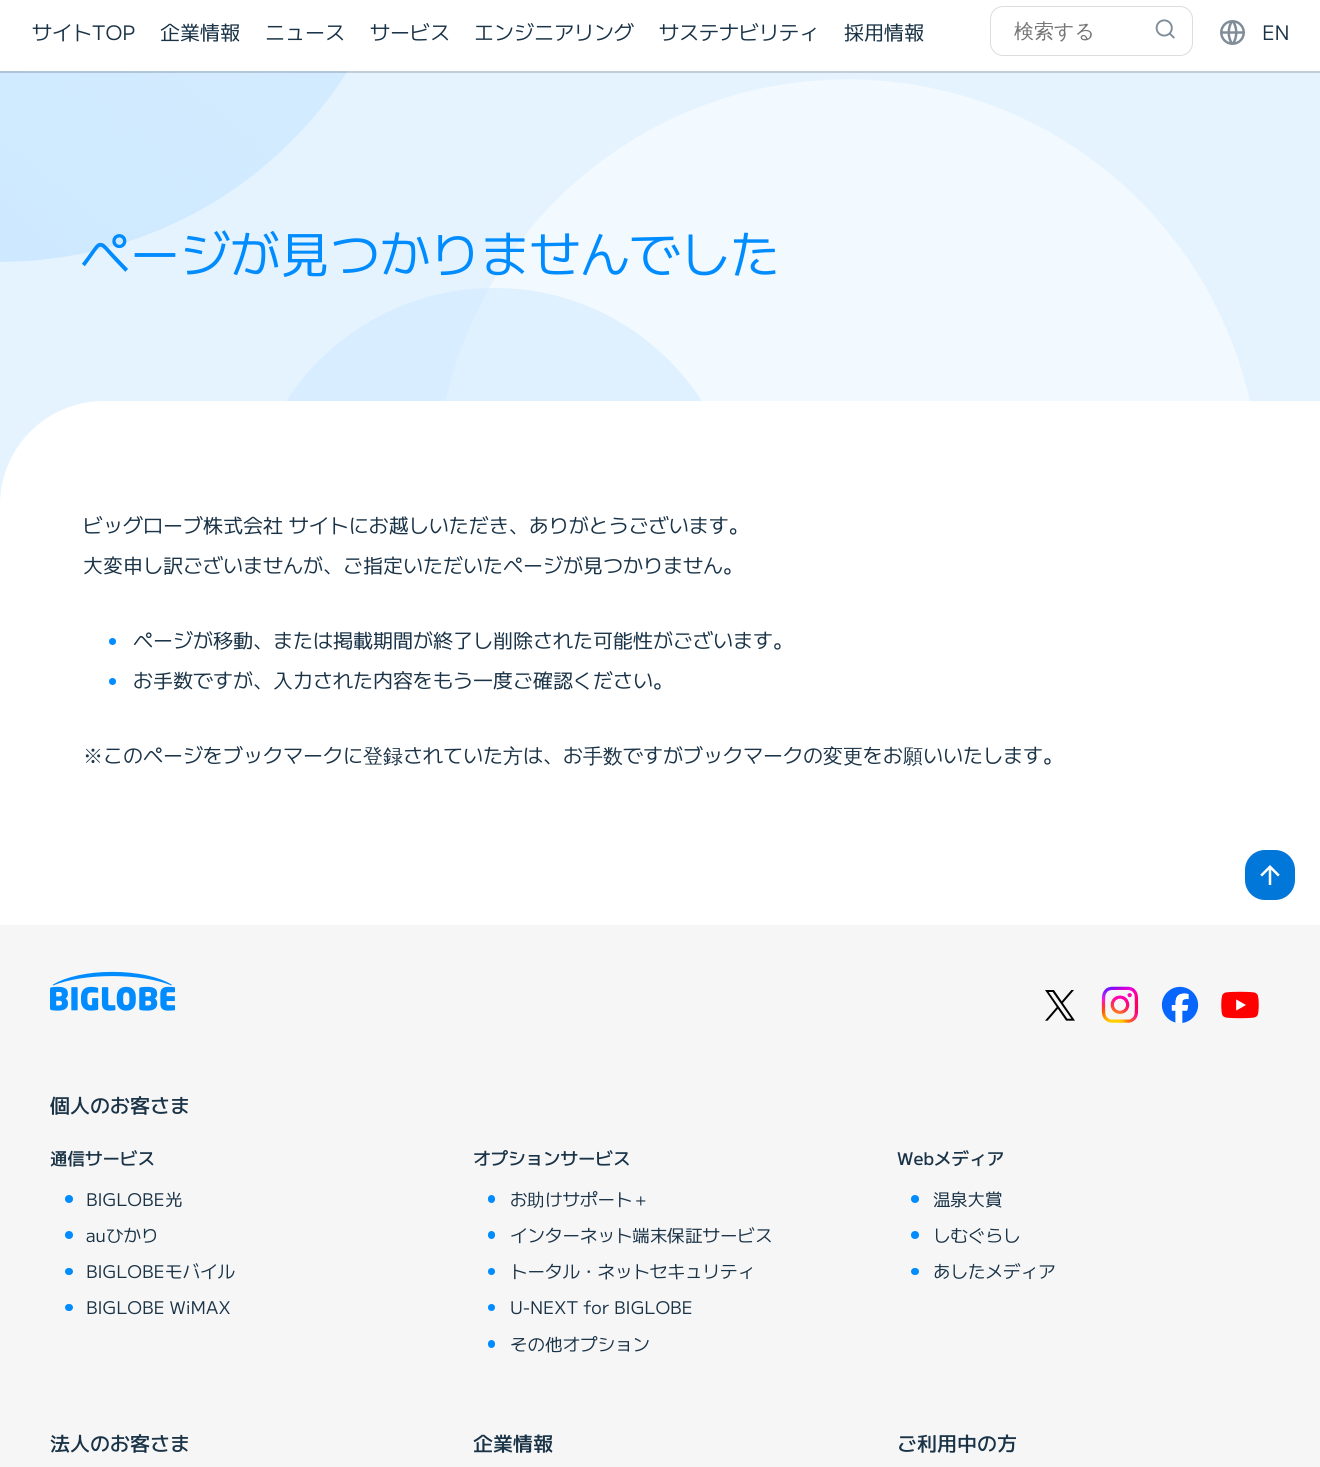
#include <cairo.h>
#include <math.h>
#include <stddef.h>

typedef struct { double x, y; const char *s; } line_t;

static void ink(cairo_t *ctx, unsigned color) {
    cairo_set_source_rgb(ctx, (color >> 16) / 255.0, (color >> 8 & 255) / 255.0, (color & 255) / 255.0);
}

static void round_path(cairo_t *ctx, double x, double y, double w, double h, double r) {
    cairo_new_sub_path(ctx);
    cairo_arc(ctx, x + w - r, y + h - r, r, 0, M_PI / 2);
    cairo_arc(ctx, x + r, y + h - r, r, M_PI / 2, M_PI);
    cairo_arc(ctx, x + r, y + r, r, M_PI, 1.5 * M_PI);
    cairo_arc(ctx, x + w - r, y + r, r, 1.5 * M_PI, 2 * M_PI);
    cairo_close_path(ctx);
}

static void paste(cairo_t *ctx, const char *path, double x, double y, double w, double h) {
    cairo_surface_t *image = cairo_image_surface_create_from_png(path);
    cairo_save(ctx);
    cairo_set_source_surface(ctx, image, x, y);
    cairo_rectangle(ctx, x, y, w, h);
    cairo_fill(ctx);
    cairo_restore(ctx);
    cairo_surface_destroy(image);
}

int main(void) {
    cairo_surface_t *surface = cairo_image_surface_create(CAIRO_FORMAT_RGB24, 1320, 1467);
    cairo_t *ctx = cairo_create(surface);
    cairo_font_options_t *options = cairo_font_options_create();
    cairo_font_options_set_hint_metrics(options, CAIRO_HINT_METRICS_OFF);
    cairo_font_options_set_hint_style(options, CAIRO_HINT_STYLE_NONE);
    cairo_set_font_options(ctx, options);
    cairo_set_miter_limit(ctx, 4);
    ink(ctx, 0xFFFFFF);
    cairo_paint(ctx);
    ink(ctx, 0xE5F3FF);
    cairo_rectangle(ctx, 0, 71, 1320, 434);
    cairo_fill(ctx);
    paste(ctx, "media/3.png", 0, 71, 1250, 330);
    cairo_set_source_rgba(ctx, 0, 0, 0, 0.16);
    cairo_rectangle(ctx, 0, 71, 1320, 2);
    cairo_fill(ctx);
    cairo_select_font_face(ctx, "M PLUS 1", CAIRO_FONT_SLANT_NORMAL, CAIRO_FONT_WEIGHT_NORMAL);
    cairo_set_font_size(ctx, 20);
    ink(ctx, 0x1A3347);
    {
        static const line_t items[] = {
            {32, 40, "サイトTOP"},
            {160, 40, "企業情報"},
            {265, 40, "ニュース"},
            {370, 40, "サービス"},
            {474, 40, "エンジニアリング"},
            {659, 40, "サステナビリティ"},
            {844, 40, "採用情報"},
        };
        for (size_t i = 0; i < sizeof items / sizeof *items; i++) {
            cairo_move_to(ctx, items[i].x, items[i].y);
            cairo_show_text(ctx, items[i].s);
        }
    }
    round_path(ctx, 990.5, 6.5, 202, 49, 12.5);
    ink(ctx, 0xD9DDE0);
    cairo_set_line_width(ctx, 1);
    cairo_stroke(ctx);
    cairo_select_font_face(ctx, "WenQuanYi Zen Hei Medium", CAIRO_FONT_SLANT_NORMAL, CAIRO_FONT_WEIGHT_NORMAL);
    ink(ctx, 0x757575);
    cairo_move_to(ctx, 1014, 38);
    cairo_show_text(ctx, "検索する");
    paste(ctx, "media/1.png", 1155, 19, 20, 20);
    paste(ctx, "media/2.png", 1220, 20, 25, 25);
    cairo_select_font_face(ctx, "M PLUS 1", CAIRO_FONT_SLANT_NORMAL, CAIRO_FONT_WEIGHT_NORMAL);
    ink(ctx, 0x1A3347);
    cairo_move_to(ctx, 1262, 40);
    cairo_show_text(ctx, "EN");
    cairo_set_font_size(ctx, 50);
    ink(ctx, 0x008CFF);
    cairo_move_to(ctx, 80, 273);
    cairo_show_text(ctx, "ページが見つかりませんでした");
    ink(ctx, 0xFFFFFF);
    cairo_new_path(ctx);
    cairo_move_to(ctx, 104, 401);
    cairo_line_to(ctx, 1320, 401);
    cairo_line_to(ctx, 1320, 925);
    cairo_line_to(ctx, 104, 925);
    cairo_curve_to(ctx, 46.5, 925, 0, 878.5, 0, 821);
    cairo_line_to(ctx, 0, 505);
    cairo_curve_to(ctx, 0, 447.5, 46.5, 401, 104, 401);
    cairo_close_path(ctx);
    cairo_fill(ctx);
    cairo_set_font_size(ctx, 20);
    ink(ctx, 0x1A3347);
    cairo_move_to(ctx, 83, 533);
    cairo_show_text(ctx, "ビッグローブ株式会社 サイトにお越しいただき、ありがとうございます。");
    cairo_move_to(ctx, 83, 573);
    cairo_show_text(ctx, "大変申し訳ございませんが、ご指定いただいたページが見つかりません。");
    ink(ctx, 0x008CFF);
    cairo_new_path(ctx);
    cairo_arc(ctx, 112.5, 641.5, 3.5, 0, 2 * M_PI);
    cairo_fill(ctx);
    ink(ctx, 0x1A3347);
    cairo_move_to(ctx, 133, 648);
    cairo_show_text(ctx, "ページが移動、または掲載期間が終了し削除された可能性がございます。");
    ink(ctx, 0x008CFF);
    cairo_new_path(ctx);
    cairo_arc(ctx, 112.5, 681.5, 3.5, 0, 2 * M_PI);
    cairo_fill(ctx);
    ink(ctx, 0x1A3347);
    cairo_move_to(ctx, 133, 688);
    cairo_show_text(ctx, "お手数ですが、入力された内容をもう一度ご確認ください。");
    cairo_select_font_face(ctx, "WenQuanYi Zen Hei Medium", CAIRO_FONT_SLANT_NORMAL, CAIRO_FONT_WEIGHT_NORMAL);
    cairo_move_to(ctx, 83, 763);
    cairo_show_text(ctx, "※");
    cairo_select_font_face(ctx, "M PLUS 1", CAIRO_FONT_SLANT_NORMAL, CAIRO_FONT_WEIGHT_NORMAL);
    cairo_move_to(ctx, 103, 763);
    cairo_show_text(ctx, "このページをブックマークに");
    cairo_select_font_face(ctx, "WenQuanYi Zen Hei Medium", CAIRO_FONT_SLANT_NORMAL, CAIRO_FONT_WEIGHT_NORMAL);
    cairo_move_to(ctx, 363, 763);
    cairo_show_text(ctx, "登録");
    cairo_select_font_face(ctx, "M PLUS 1", CAIRO_FONT_SLANT_NORMAL, CAIRO_FONT_WEIGHT_NORMAL);
    cairo_move_to(ctx, 403, 763);
    cairo_show_text(ctx, "されていた");
    cairo_select_font_face(ctx, "WenQuanYi Zen Hei Medium", CAIRO_FONT_SLANT_NORMAL, CAIRO_FONT_WEIGHT_NORMAL);
    cairo_move_to(ctx, 503, 763);
    cairo_show_text(ctx, "方");
    cairo_select_font_face(ctx, "M PLUS 1", CAIRO_FONT_SLANT_NORMAL, CAIRO_FONT_WEIGHT_NORMAL);
    cairo_move_to(ctx, 523, 763);
    cairo_show_text(ctx, "は、お");
    cairo_select_font_face(ctx, "WenQuanYi Zen Hei Medium", CAIRO_FONT_SLANT_NORMAL, CAIRO_FONT_WEIGHT_NORMAL);
    cairo_move_to(ctx, 583, 763);
    cairo_show_text(ctx, "手数");
    cairo_select_font_face(ctx, "M PLUS 1", CAIRO_FONT_SLANT_NORMAL, CAIRO_FONT_WEIGHT_NORMAL);
    cairo_move_to(ctx, 623, 763);
    cairo_show_text(ctx, "ですがブックマークの");
    cairo_select_font_face(ctx, "WenQuanYi Zen Hei Medium", CAIRO_FONT_SLANT_NORMAL, CAIRO_FONT_WEIGHT_NORMAL);
    cairo_move_to(ctx, 823, 763);
    cairo_show_text(ctx, "変更");
    cairo_select_font_face(ctx, "M PLUS 1", CAIRO_FONT_SLANT_NORMAL, CAIRO_FONT_WEIGHT_NORMAL);
    cairo_move_to(ctx, 863, 763);
    cairo_show_text(ctx, "をお");
    cairo_select_font_face(ctx, "WenQuanYi Zen Hei Medium", CAIRO_FONT_SLANT_NORMAL, CAIRO_FONT_WEIGHT_NORMAL);
    cairo_move_to(ctx, 903, 763);
    cairo_show_text(ctx, "願");
    cairo_select_font_face(ctx, "M PLUS 1", CAIRO_FONT_SLANT_NORMAL, CAIRO_FONT_WEIGHT_NORMAL);
    cairo_move_to(ctx, 923, 763);
    cairo_show_text(ctx, "いいたします。");
    ink(ctx, 0x0077D9);
    round_path(ctx, 1245, 850, 50, 50, 20);
    cairo_fill(ctx);
    paste(ctx, "media/4.png", 1260, 865, 20, 20);
    ink(ctx, 0xF6F6F6);
    cairo_rectangle(ctx, 0, 925, 1320, 542);
    cairo_fill(ctx);
    paste(ctx, "media/5.png", 50, 971, 125, 40);
    paste(ctx, "media/6.png", 1045, 990, 30, 31);
    paste(ctx, "media/7.png", 1101, 986, 38, 37);
    paste(ctx, "media/8.png", 1161, 986, 38, 37);
    paste(ctx, "media/9.png", 1221, 991, 38, 28);
    cairo_select_font_face(ctx, "M PLUS 1 Medium", CAIRO_FONT_SLANT_NORMAL, CAIRO_FONT_WEIGHT_NORMAL);
    ink(ctx, 0x1A3347);
    cairo_move_to(ctx, 50, 1113);
    cairo_show_text(ctx, "個人のお客さま");
    cairo_set_font_size(ctx, 17.5);
    cairo_move_to(ctx, 50, 1165);
    cairo_show_text(ctx, "通信サービス");
    ink(ctx, 0x008CFF);
    cairo_new_path(ctx);
    cairo_arc(ctx, 69, 1199, 4, 0, 2 * M_PI);
    cairo_fill(ctx);
    cairo_select_font_face(ctx, "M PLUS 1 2", CAIRO_FONT_SLANT_NORMAL, CAIRO_FONT_WEIGHT_NORMAL);
    ink(ctx, 0x1A3347);
    cairo_move_to(ctx, 86, 1206);
    cairo_show_text(ctx, "BIGLOBE");
    cairo_select_font_face(ctx, "M PLUS 1", CAIRO_FONT_SLANT_NORMAL, CAIRO_FONT_WEIGHT_NORMAL);
    cairo_move_to(ctx, 165, 1206);
    cairo_show_text(ctx, "光");
    ink(ctx, 0x008CFF);
    cairo_new_path(ctx);
    cairo_arc(ctx, 69, 1235, 4, 0, 2 * M_PI);
    cairo_fill(ctx);
    cairo_select_font_face(ctx, "M PLUS 1 2", CAIRO_FONT_SLANT_NORMAL, CAIRO_FONT_WEIGHT_NORMAL);
    ink(ctx, 0x1A3347);
    cairo_move_to(ctx, 86, 1242);
    cairo_show_text(ctx, "au");
    cairo_select_font_face(ctx, "M PLUS 1", CAIRO_FONT_SLANT_NORMAL, CAIRO_FONT_WEIGHT_NORMAL);
    cairo_move_to(ctx, 106, 1242);
    cairo_show_text(ctx, "ひかり");
    ink(ctx, 0x008CFF);
    round_path(ctx, 65, 1268, 8, 7, 3.5);
    cairo_fill(ctx);
    cairo_select_font_face(ctx, "M PLUS 1 2", CAIRO_FONT_SLANT_NORMAL, CAIRO_FONT_WEIGHT_NORMAL);
    ink(ctx, 0x1A3347);
    cairo_move_to(ctx, 86, 1278);
    cairo_show_text(ctx, "BIGLOBE");
    cairo_select_font_face(ctx, "M PLUS 1", CAIRO_FONT_SLANT_NORMAL, CAIRO_FONT_WEIGHT_NORMAL);
    cairo_move_to(ctx, 165, 1278);
    cairo_show_text(ctx, "モバイル");
    ink(ctx, 0x008CFF);
    round_path(ctx, 65, 1304, 8, 7, 3.5);
    cairo_fill(ctx);
    cairo_select_font_face(ctx, "M PLUS 1 2", CAIRO_FONT_SLANT_NORMAL, CAIRO_FONT_WEIGHT_NORMAL);
    ink(ctx, 0x1A3347);
    cairo_move_to(ctx, 86, 1314);
    cairo_show_text(ctx, "BIGLOBE WiMAX");
    cairo_select_font_face(ctx, "M PLUS 1 Medium", CAIRO_FONT_SLANT_NORMAL, CAIRO_FONT_WEIGHT_NORMAL);
    cairo_move_to(ctx, 473, 1165);
    cairo_show_text(ctx, "オプションサービス");
    ink(ctx, 0x008CFF);
    round_path(ctx, 488, 1195, 7, 8, 3.5);
    cairo_fill(ctx);
    cairo_select_font_face(ctx, "M PLUS 1", CAIRO_FONT_SLANT_NORMAL, CAIRO_FONT_WEIGHT_NORMAL);
    ink(ctx, 0x1A3347);
    cairo_move_to(ctx, 510, 1206);
    cairo_show_text(ctx, "お");
    cairo_select_font_face(ctx, "WenQuanYi Zen Hei Medium", CAIRO_FONT_SLANT_NORMAL, CAIRO_FONT_WEIGHT_NORMAL);
    cairo_move_to(ctx, 527, 1206);
    cairo_show_text(ctx, "助");
    cairo_select_font_face(ctx, "M PLUS 1", CAIRO_FONT_SLANT_NORMAL, CAIRO_FONT_WEIGHT_NORMAL);
    cairo_move_to(ctx, 545, 1206);
    cairo_show_text(ctx, "けサポート");
    cairo_select_font_face(ctx, "WenQuanYi Zen Hei Medium", CAIRO_FONT_SLANT_NORMAL, CAIRO_FONT_WEIGHT_NORMAL);
    cairo_move_to(ctx, 632, 1206);
    cairo_show_text(ctx, "＋");
    ink(ctx, 0x008CFF);
    round_path(ctx, 488, 1231, 7, 8, 3.5);
    cairo_fill(ctx);
    cairo_select_font_face(ctx, "M PLUS 1", CAIRO_FONT_SLANT_NORMAL, CAIRO_FONT_WEIGHT_NORMAL);
    ink(ctx, 0x1A3347);
    cairo_move_to(ctx, 510, 1242);
    cairo_show_text(ctx, "インターネット");
    cairo_select_font_face(ctx, "M PLUS 1 2", CAIRO_FONT_SLANT_NORMAL, CAIRO_FONT_WEIGHT_NORMAL);
    cairo_move_to(ctx, 632, 1242);
    cairo_show_text(ctx, "端");
    cairo_select_font_face(ctx, "M PLUS 1", CAIRO_FONT_SLANT_NORMAL, CAIRO_FONT_WEIGHT_NORMAL);
    cairo_move_to(ctx, 650, 1242);
    cairo_show_text(ctx, "末");
    cairo_select_font_face(ctx, "M PLUS 1 2", CAIRO_FONT_SLANT_NORMAL, CAIRO_FONT_WEIGHT_NORMAL);
    cairo_move_to(ctx, 667, 1242);
    cairo_show_text(ctx, "保");
    cairo_select_font_face(ctx, "M PLUS 1", CAIRO_FONT_SLANT_NORMAL, CAIRO_FONT_WEIGHT_NORMAL);
    cairo_move_to(ctx, 685, 1242);
    cairo_show_text(ctx, "証サービス");
    ink(ctx, 0x008CFF);
    cairo_new_path(ctx);
    cairo_arc(ctx, 491.5, 1271.5, 3.5, 0, 2 * M_PI);
    cairo_fill(ctx);
    ink(ctx, 0x1A3347);
    cairo_move_to(ctx, 510, 1278);
    cairo_show_text(ctx, "トータル・ネットセキュリティ");
    ink(ctx, 0x008CFF);
    cairo_new_path(ctx);
    cairo_arc(ctx, 491.5, 1307.5, 3.5, 0, 2 * M_PI);
    cairo_fill(ctx);
    cairo_select_font_face(ctx, "M PLUS 1 2", CAIRO_FONT_SLANT_NORMAL, CAIRO_FONT_WEIGHT_NORMAL);
    ink(ctx, 0x1A3347);
    cairo_move_to(ctx, 510, 1314);
    cairo_show_text(ctx, "U-");
    cairo_select_font_face(ctx, "M PLUS 1", CAIRO_FONT_SLANT_NORMAL, CAIRO_FONT_WEIGHT_NORMAL);
    cairo_move_to(ctx, 530, 1314);
    cairo_show_text(ctx, "N");
    cairo_select_font_face(ctx, "M PLUS 1 2", CAIRO_FONT_SLANT_NORMAL, CAIRO_FONT_WEIGHT_NORMAL);
    cairo_move_to(ctx, 543, 1314);
    cairo_show_text(ctx, "EXT for BIGLOBE");
    ink(ctx, 0x008CFF);
    round_path(ctx, 488, 1340, 7, 8, 3.5);
    cairo_fill(ctx);
    cairo_select_font_face(ctx, "M PLUS 1", CAIRO_FONT_SLANT_NORMAL, CAIRO_FONT_WEIGHT_NORMAL);
    ink(ctx, 0x1A3347);
    cairo_move_to(ctx, 510, 1351);
    cairo_show_text(ctx, "その他オプション");
    cairo_select_font_face(ctx, "M PLUS 1 Medium", CAIRO_FONT_SLANT_NORMAL, CAIRO_FONT_WEIGHT_NORMAL);
    cairo_move_to(ctx, 897, 1165);
    cairo_show_text(ctx, "Webメディア");
    ink(ctx, 0x008CFF);
    cairo_new_path(ctx);
    cairo_arc(ctx, 915, 1199, 4, 0, 2 * M_PI);
    cairo_fill(ctx);
    cairo_select_font_face(ctx, "M PLUS 1 2", CAIRO_FONT_SLANT_NORMAL, CAIRO_FONT_WEIGHT_NORMAL);
    ink(ctx, 0x1A3347);
    cairo_move_to(ctx, 933, 1206);
    cairo_show_text(ctx, "温");
    cairo_select_font_face(ctx, "M PLUS 1", CAIRO_FONT_SLANT_NORMAL, CAIRO_FONT_WEIGHT_NORMAL);
    cairo_move_to(ctx, 950, 1206);
    cairo_show_text(ctx, "泉大賞");
    ink(ctx, 0x008CFF);
    cairo_new_path(ctx);
    cairo_arc(ctx, 915, 1235, 4, 0, 2 * M_PI);
    cairo_fill(ctx);
    ink(ctx, 0x1A3347);
    cairo_move_to(ctx, 933, 1242);
    cairo_show_text(ctx, "しむぐらし");
    ink(ctx, 0x008CFF);
    round_path(ctx, 911, 1268, 8, 7, 3.5);
    cairo_fill(ctx);
    ink(ctx, 0x1A3347);
    cairo_move_to(ctx, 933, 1278);
    cairo_show_text(ctx, "あしたメディア");
    cairo_select_font_face(ctx, "M PLUS 1 Medium", CAIRO_FONT_SLANT_NORMAL, CAIRO_FONT_WEIGHT_NORMAL);
    cairo_set_font_size(ctx, 20);
    {
        static const line_t items[] = {
            {50, 1451, "法人のお客さま"},
            {473, 1451, "企業情報"},
            {897, 1451, "ご利用中の方"},
        };
        for (size_t i = 0; i < sizeof items / sizeof *items; i++) {
            cairo_move_to(ctx, items[i].x, items[i].y);
            cairo_show_text(ctx, items[i].s);
        }
    }
    cairo_surface_write_to_png(surface, "image.png");
    cairo_font_options_destroy(options);
    cairo_destroy(ctx);
    cairo_surface_destroy(surface);
    return 0;
}
